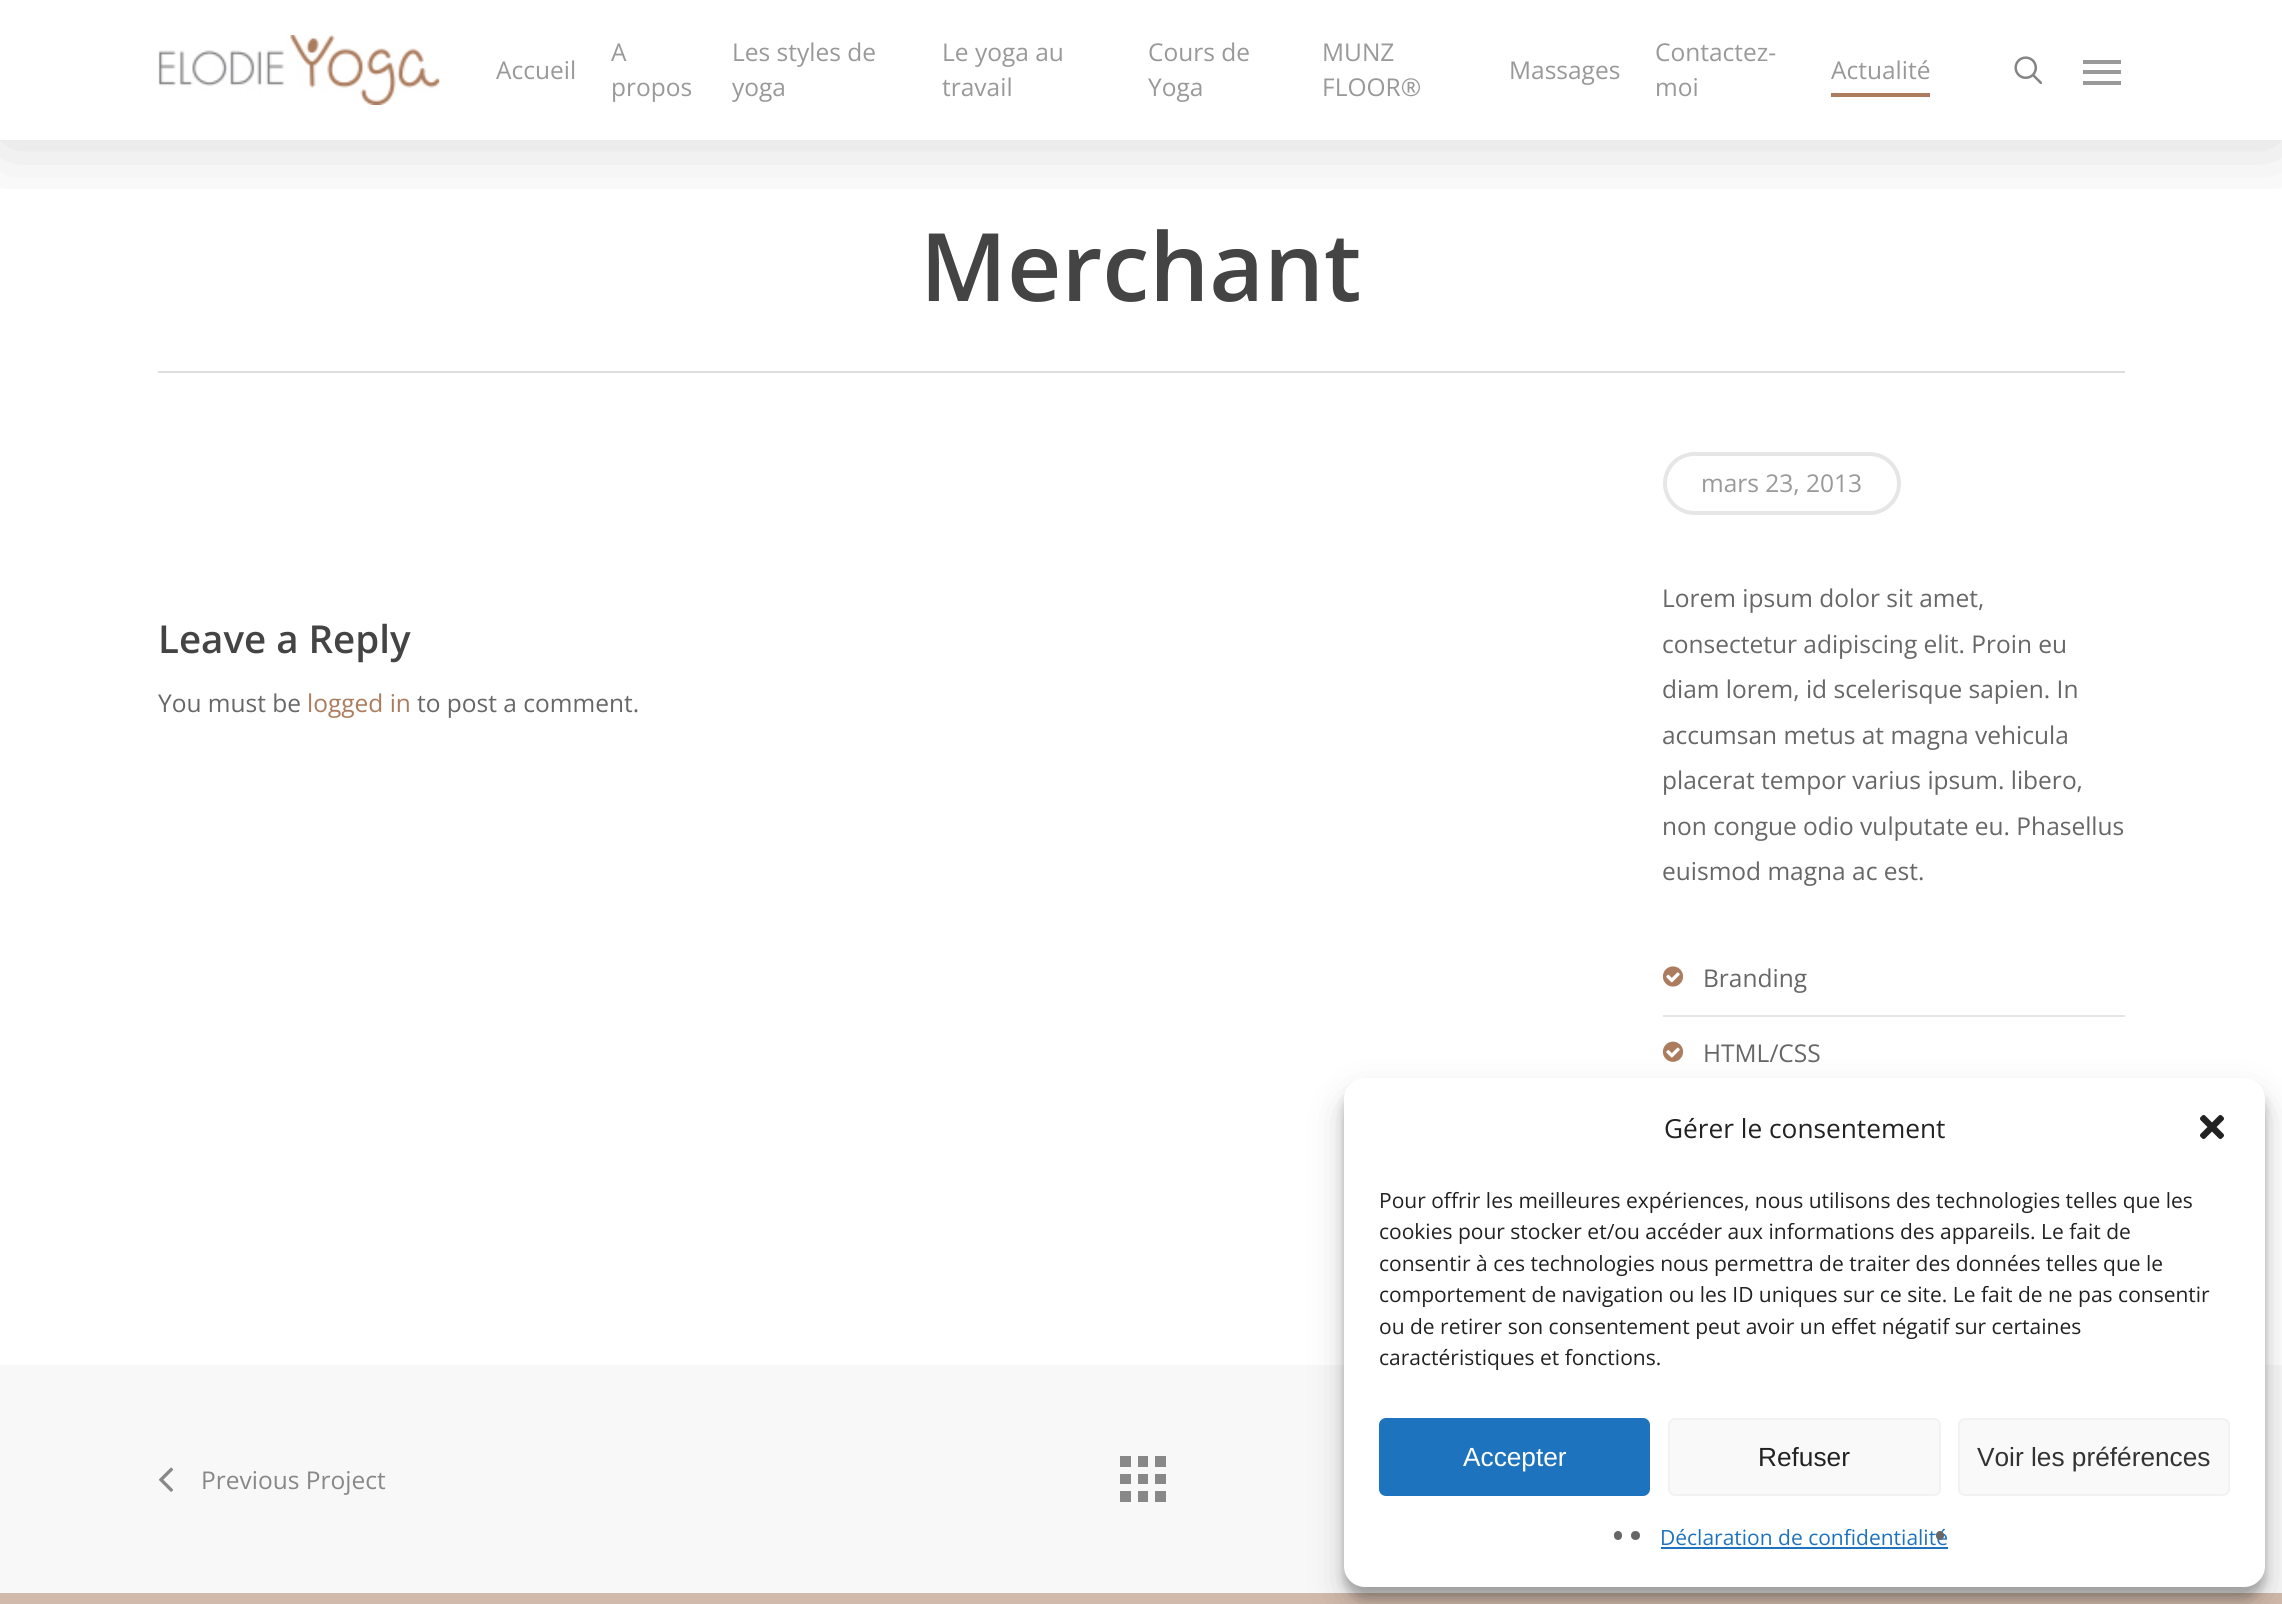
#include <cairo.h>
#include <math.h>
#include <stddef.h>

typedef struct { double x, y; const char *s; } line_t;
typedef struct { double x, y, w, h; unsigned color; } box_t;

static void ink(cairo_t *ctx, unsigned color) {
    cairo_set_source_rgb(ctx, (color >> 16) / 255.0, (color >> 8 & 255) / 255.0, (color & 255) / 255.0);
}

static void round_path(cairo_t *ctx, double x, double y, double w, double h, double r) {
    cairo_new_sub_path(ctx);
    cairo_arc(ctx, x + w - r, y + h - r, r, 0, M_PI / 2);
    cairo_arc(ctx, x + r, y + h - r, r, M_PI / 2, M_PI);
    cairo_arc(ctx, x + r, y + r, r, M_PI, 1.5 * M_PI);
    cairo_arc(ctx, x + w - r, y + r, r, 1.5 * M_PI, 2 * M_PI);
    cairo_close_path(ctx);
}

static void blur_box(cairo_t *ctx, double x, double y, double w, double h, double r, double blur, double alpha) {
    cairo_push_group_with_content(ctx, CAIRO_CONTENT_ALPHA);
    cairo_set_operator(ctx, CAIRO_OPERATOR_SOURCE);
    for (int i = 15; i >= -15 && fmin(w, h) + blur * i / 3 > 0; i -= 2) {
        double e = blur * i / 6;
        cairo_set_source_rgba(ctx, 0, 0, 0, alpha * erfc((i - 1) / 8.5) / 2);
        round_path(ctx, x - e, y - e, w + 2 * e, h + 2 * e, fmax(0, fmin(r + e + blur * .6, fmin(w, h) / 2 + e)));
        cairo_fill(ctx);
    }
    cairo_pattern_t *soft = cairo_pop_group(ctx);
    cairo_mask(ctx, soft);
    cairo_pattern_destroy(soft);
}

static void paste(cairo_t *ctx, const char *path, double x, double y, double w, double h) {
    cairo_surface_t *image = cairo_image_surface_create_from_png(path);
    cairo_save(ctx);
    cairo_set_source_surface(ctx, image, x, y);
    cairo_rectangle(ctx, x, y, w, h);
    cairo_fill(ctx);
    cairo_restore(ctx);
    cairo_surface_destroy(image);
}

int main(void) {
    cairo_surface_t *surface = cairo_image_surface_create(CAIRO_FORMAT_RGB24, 2282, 1604);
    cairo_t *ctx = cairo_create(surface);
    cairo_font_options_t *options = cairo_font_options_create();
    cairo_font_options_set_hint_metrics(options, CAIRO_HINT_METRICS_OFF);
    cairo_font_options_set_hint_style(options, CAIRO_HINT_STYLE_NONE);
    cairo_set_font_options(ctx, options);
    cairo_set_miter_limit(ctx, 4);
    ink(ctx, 0xFFFFFF);
    cairo_paint(ctx);
    cairo_save(ctx);
    cairo_rectangle(ctx, 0, 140, 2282, 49);
    cairo_clip(ctx);
    ink(ctx, 0x000000);
    blur_box(ctx, 0, 5, 2282, 140, 0, 39.5, 0.15);
    cairo_restore(ctx);
    paste(ctx, "media/1.png", 158, 35, 282, 70);
    cairo_select_font_face(ctx, "Open Sans", CAIRO_FONT_SLANT_NORMAL, CAIRO_FONT_WEIGHT_NORMAL);
    cairo_set_font_size(ctx, 24.5);
    ink(ctx, 0x999999);
    {
        static const line_t items[] = {
            {496, 79, "Accueil"},
            {611, 61, "A"},
            {611, 96, "propos"},
            {732, 61, "Les styles de"},
            {732, 96, "yoga"},
            {942, 61, "Le yoga au"},
            {942, 96, "travail"},
            {1148, 61, "Cours de"},
            {1148, 96, "Yoga"},
            {1322, 61, "MUNZ"},
            {1322, 96, "FLOOR®"},
            {1509, 79, "Massages"},
            {1655, 61, "Contactez-"},
            {1655, 96, "moi"},
            {1831, 79, "Actualité"},
        };
        for (size_t i = 0; i < sizeof items / sizeof *items; i++) {
            cairo_move_to(ctx, items[i].x, items[i].y);
            cairo_show_text(ctx, items[i].s);
        }
    }
    ink(ctx, 0xAC7C5E);
    cairo_rectangle(ctx, 1831, 93, 99, 4);
    cairo_fill(ctx);
    paste(ctx, "media/2.png", 2014, 56, 28, 28);
    {
        static const box_t items[] = {
            {2083, 60, 38, 4, 0x999999},
            {2083, 81, 38, 4, 0x999999},
            {2083, 70, 38, 4, 0x999999},
            {158, 371, 1967, 2, 0xDDDDDD},
        };
        for (size_t i = 0; i < sizeof items / sizeof *items; i++) {
            ink(ctx, items[i].color);
            cairo_rectangle(ctx, items[i].x, items[i].y, items[i].w, items[i].h);
            cairo_fill(ctx);
        }
    }
    cairo_select_font_face(ctx, "Open Sans SemiBold", CAIRO_FONT_SLANT_NORMAL, CAIRO_FONT_WEIGHT_NORMAL);
    cairo_set_font_size(ctx, 94.5);
    ink(ctx, 0x444444);
    cairo_move_to(ctx, 920, 301);
    cairo_show_text(ctx, "Merchant");
    cairo_set_font_size(ctx, 38.5);
    cairo_move_to(ctx, 158, 653);
    cairo_show_text(ctx, "Leave a Reply");
    cairo_select_font_face(ctx, "Open Sans", CAIRO_FONT_SLANT_NORMAL, CAIRO_FONT_WEIGHT_NORMAL);
    cairo_set_font_size(ctx, 24.5);
    ink(ctx, 0x676767);
    cairo_move_to(ctx, 158, 712);
    cairo_show_text(ctx, "You must be");
    ink(ctx, 0xAC7C5E);
    cairo_move_to(ctx, 307, 712);
    cairo_show_text(ctx, "logged in");
    ink(ctx, 0x676767);
    cairo_move_to(ctx, 417, 712);
    cairo_show_text(ctx, "to post a comment.");
    round_path(ctx, 1665, 454, 234, 59, 29.5);
    ink(ctx, 0xE6E6E6);
    cairo_set_line_width(ctx, 4);
    cairo_stroke(ctx);
    ink(ctx, 0x999999);
    cairo_move_to(ctx, 1701, 492);
    cairo_show_text(ctx, "mars 23, 2013");
    ink(ctx, 0x676767);
    {
        static const line_t items[] = {
            {1662, 607, "Lorem ipsum dolor sit amet,"},
            {1662, 653, "consectetur adipiscing elit. Proin eu"},
            {1662, 698, "diam lorem, id scelerisque sapien. In"},
            {1662, 744, "accumsan metus at magna vehicula"},
            {1662, 789, "placerat tempor varius ipsum. libero,"},
            {1662, 835, "non congue odio vulputate eu. Phasellus"},
            {1662, 880, "euismod magna ac est."},
        };
        for (size_t i = 0; i < sizeof items / sizeof *items; i++) {
            cairo_move_to(ctx, items[i].x, items[i].y);
            cairo_show_text(ctx, items[i].s);
        }
    }
    ink(ctx, 0xE6E6E6);
    cairo_rectangle(ctx, 1663, 1015, 462, 2);
    cairo_fill(ctx);
    paste(ctx, "media/3.png", 1662, 966, 22, 21);
    ink(ctx, 0x676767);
    cairo_move_to(ctx, 1703, 987);
    cairo_show_text(ctx, "Branding");
    paste(ctx, "media/4.png", 1662, 1041, 22, 21);
    cairo_move_to(ctx, 1703, 1062);
    cairo_show_text(ctx, "HTML/CSS");
    ink(ctx, 0xF8F8F8);
    cairo_rectangle(ctx, 0, 1365, 2282, 228);
    cairo_fill(ctx);
    paste(ctx, "media/5.png", 159, 1467, 14, 25);
    ink(ctx, 0x888888);
    cairo_move_to(ctx, 201, 1489);
    cairo_show_text(ctx, "Previous Project");
    {
        static const box_t items[] = {
            {1155, 1491, 11, 11, 0x888888},
            {1138, 1491, 10, 11, 0x888888},
            {1120, 1456, 11, 11, 0x888888},
            {1138, 1456, 10, 11, 0x888888},
            {1155, 1456, 11, 11, 0x888888},
            {1155, 1474, 11, 10, 0x888888},
            {1120, 1491, 11, 11, 0x888888},
            {1120, 1474, 11, 10, 0x888888},
            {1138, 1474, 10, 10, 0x888888},
            {0, 1593, 2282, 11, 0xD1BAAB},
        };
        for (size_t i = 0; i < sizeof items / sizeof *items; i++) {
            ink(ctx, items[i].color);
            cairo_rectangle(ctx, items[i].x, items[i].y, items[i].w, items[i].h);
            cairo_fill(ctx);
        }
    }
    ink(ctx, 0x000000);
    blur_box(ctx, 1344, 1089, 921, 509, 21, 5, 0.23);
    blur_box(ctx, 1344, 1096, 921, 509, 21, 17.5, 0.19);
    ink(ctx, 0xFFFFFF);
    round_path(ctx, 1344, 1078, 921, 509, 21);
    cairo_fill(ctx);
    cairo_set_font_size(ctx, 26.25);
    ink(ctx, 0x222222);
    cairo_move_to(ctx, 1664, 1138);
    cairo_show_text(ctx, "Gérer le consentement");
    paste(ctx, "media/6.png", 2200, 1115, 24, 24);
    cairo_set_font_size(ctx, 21);
    {
        static const line_t items[] = {
            {1379, 1208, "Pour offrir les meilleures expériences, nous utilisons des technologies telles que les"},
            {1379, 1239, "cookies pour stocker et/ou accéder aux informations des appareils. Le fait de"},
            {1379, 1271, "consentir à ces technologies nous permettra de traiter des données telles que le"},
            {1379, 1302, "comportement de navigation ou les ID uniques sur ce site. Le fait de ne pas consentir"},
            {1379, 1334, "ou de retirer son consentement peut avoir un effet négatif sur certaines"},
            {1379, 1365, "caractéristiques et fonctions."},
        };
        for (size_t i = 0; i < sizeof items / sizeof *items; i++) {
            cairo_move_to(ctx, items[i].x, items[i].y);
            cairo_show_text(ctx, items[i].s);
        }
    }
    ink(ctx, 0x1E73BE);
    round_path(ctx, 1380, 1419, 269, 76, 6);
    cairo_fill_preserve(ctx);
    cairo_set_line_width(ctx, 2);
    cairo_stroke(ctx);
    cairo_select_font_face(ctx, "Liberation Sans", CAIRO_FONT_SLANT_NORMAL, CAIRO_FONT_WEIGHT_NORMAL);
    cairo_set_font_size(ctx, 26.25);
    ink(ctx, 0xFFFFFF);
    cairo_move_to(ctx, 1463, 1466);
    cairo_show_text(ctx, "Accepter");
    ink(ctx, 0xF9F9F9);
    round_path(ctx, 1669, 1419, 271, 76, 6);
    cairo_fill_preserve(ctx);
    ink(ctx, 0xF2F2F2);
    cairo_stroke(ctx);
    ink(ctx, 0x222222);
    cairo_move_to(ctx, 1758, 1466);
    cairo_show_text(ctx, "Refuser");
    ink(ctx, 0xF9F9F9);
    round_path(ctx, 1959, 1419, 270, 76, 6);
    cairo_fill_preserve(ctx);
    ink(ctx, 0xF2F2F2);
    cairo_stroke(ctx);
    ink(ctx, 0x333333);
    cairo_move_to(ctx, 1977, 1466);
    cairo_show_text(ctx, "Voir les préférences");
    ink(ctx, 0x676767);
    round_path(ctx, 1614, 1531, 8, 9, 4);
    cairo_fill(ctx);
    cairo_arc(ctx, 1635.5, 1535.5, 4.5, 0, 2 * M_PI);
    cairo_fill(ctx);
    cairo_select_font_face(ctx, "Open Sans", CAIRO_FONT_SLANT_NORMAL, CAIRO_FONT_WEIGHT_NORMAL);
    cairo_set_font_size(ctx, 21);
    ink(ctx, 0x1E73BE);
    cairo_move_to(ctx, 1660, 1545);
    cairo_show_text(ctx, "Déclaration de confidentialité");
    cairo_rectangle(ctx, 1661, 1547, 287, 2);
    cairo_fill(ctx);
    ink(ctx, 0x676767);
    round_path(ctx, 1936, 1531, 8, 9, 4);
    cairo_fill(ctx);
    cairo_surface_write_to_png(surface, "image.png");
    cairo_font_options_destroy(options);
    cairo_destroy(ctx);
    cairo_surface_destroy(surface);
    return 0;
}
